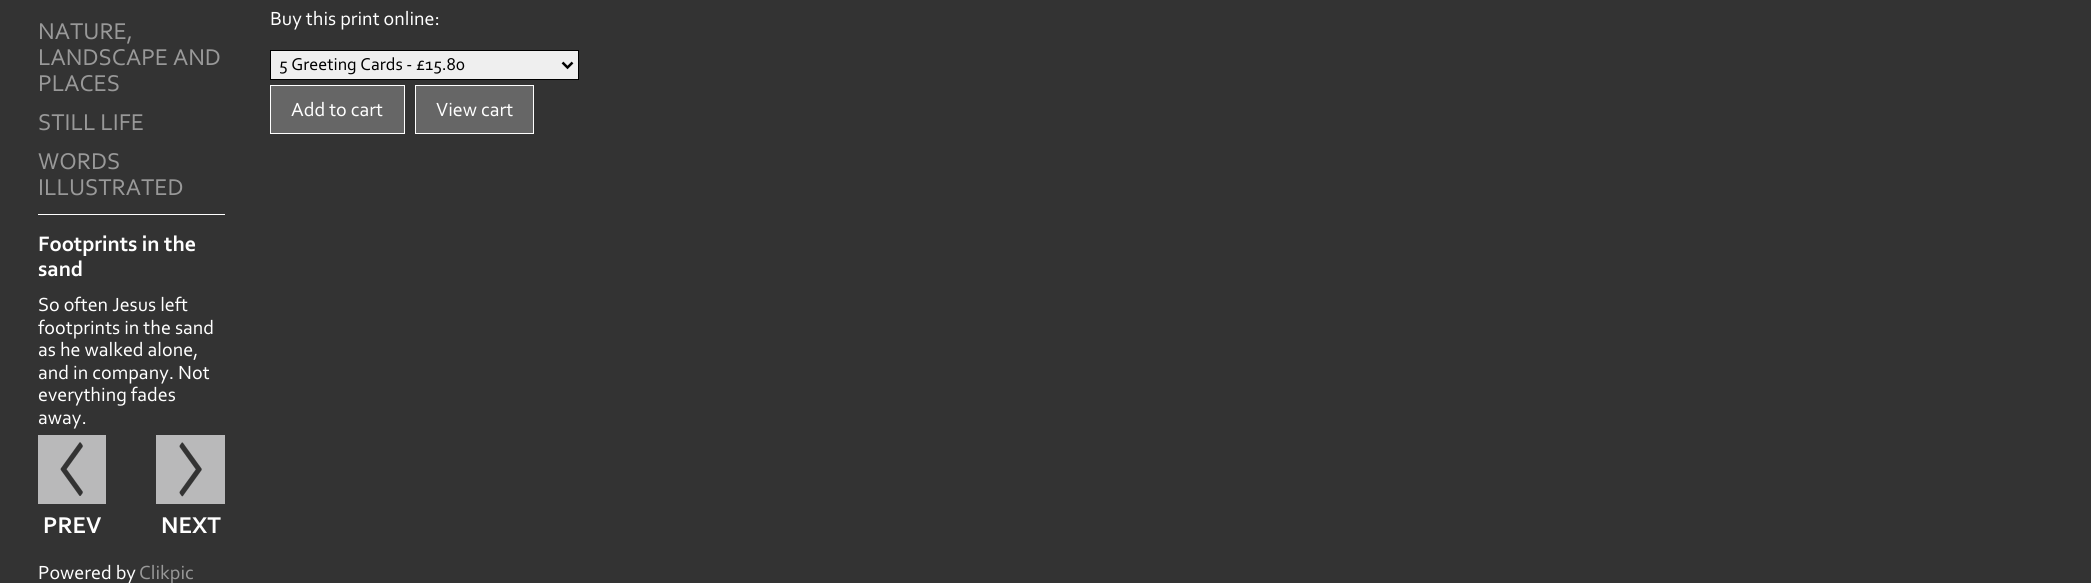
#include <cairo.h>
#include <math.h>
#include <stddef.h>

typedef struct { double x, y; const char *s; } line_t;

static void ink(cairo_t *ctx, unsigned color) {
    cairo_set_source_rgb(ctx, (color >> 16) / 255.0, (color >> 8 & 255) / 255.0, (color & 255) / 255.0);
}

static void paste(cairo_t *ctx, const char *path, double x, double y, double w, double h) {
    cairo_surface_t *image = cairo_image_surface_create_from_png(path);
    cairo_save(ctx);
    cairo_set_source_surface(ctx, image, x, y);
    cairo_rectangle(ctx, x, y, w, h);
    cairo_fill(ctx);
    cairo_restore(ctx);
    cairo_surface_destroy(image);
}

int main(void) {
    cairo_surface_t *surface = cairo_image_surface_create(CAIRO_FORMAT_RGB24, 2091, 583);
    cairo_t *ctx = cairo_create(surface);
    cairo_font_options_t *options = cairo_font_options_create();
    cairo_font_options_set_hint_metrics(options, CAIRO_HINT_METRICS_OFF);
    cairo_font_options_set_hint_style(options, CAIRO_HINT_STYLE_NONE);
    cairo_set_font_options(ctx, options);
    cairo_set_miter_limit(ctx, 4);
    ink(ctx, 0x333333);
    cairo_paint(ctx);
    ink(ctx, 0xFFFFFF);
    cairo_rectangle(ctx, 38, 214, 187, 1);
    cairo_fill(ctx);
    cairo_select_font_face(ctx, "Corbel", CAIRO_FONT_SLANT_NORMAL, CAIRO_FONT_WEIGHT_NORMAL);
    cairo_set_font_size(ctx, 24);
    ink(ctx, 0x999999);
    {
        static const line_t items[] = {
            {38, 39, "NATURE,"},
            {38, 65, "LANDSCAPE AND"},
            {38, 91, "PLACES"},
            {38, 130, "STILL LIFE"},
            {38, 169, "WORDS"},
            {38, 195, "ILLUSTRATED"},
        };
        for (size_t i = 0; i < sizeof items / sizeof *items; i++) {
            cairo_move_to(ctx, items[i].x, items[i].y);
            cairo_show_text(ctx, items[i].s);
        }
    }
    cairo_select_font_face(ctx, "Corbel", CAIRO_FONT_SLANT_NORMAL, CAIRO_FONT_WEIGHT_BOLD);
    cairo_set_font_size(ctx, 22);
    ink(ctx, 0xFFFFFF);
    cairo_move_to(ctx, 38, 251);
    cairo_show_text(ctx, "Footprints in the");
    cairo_move_to(ctx, 38, 276);
    cairo_show_text(ctx, "sand");
    cairo_select_font_face(ctx, "Corbel", CAIRO_FONT_SLANT_NORMAL, CAIRO_FONT_WEIGHT_NORMAL);
    cairo_set_font_size(ctx, 20);
    {
        static const line_t items[] = {
            {38, 311, "So often Jesus left"},
            {38, 334, "footprints in the sand"},
            {38, 356, "as he walked alone,"},
            {38, 379, "and in company. Not"},
            {38, 401, "everything fades"},
            {38, 424, "away."},
        };
        for (size_t i = 0; i < sizeof items / sizeof *items; i++) {
            cairo_move_to(ctx, items[i].x, items[i].y);
            cairo_show_text(ctx, items[i].s);
        }
    }
    ink(ctx, 0xB9B9BA);
    cairo_rectangle(ctx, 38, 435, 68, 69);
    cairo_fill(ctx);
    paste(ctx, "media/1.png", 60, 442, 23, 54);
    cairo_select_font_face(ctx, "Corbel", CAIRO_FONT_SLANT_NORMAL, CAIRO_FONT_WEIGHT_BOLD);
    cairo_set_font_size(ctx, 24);
    ink(ctx, 0xFFFFFF);
    cairo_move_to(ctx, 43, 533);
    cairo_show_text(ctx, "PREV");
    ink(ctx, 0xB9B9BA);
    cairo_rectangle(ctx, 156, 435, 69, 69);
    cairo_fill(ctx);
    paste(ctx, "media/2.png", 179, 442, 23, 55);
    ink(ctx, 0xFFFFFF);
    cairo_move_to(ctx, 161, 533);
    cairo_show_text(ctx, "NEXT");
    cairo_select_font_face(ctx, "Corbel", CAIRO_FONT_SLANT_NORMAL, CAIRO_FONT_WEIGHT_NORMAL);
    cairo_set_font_size(ctx, 20);
    cairo_move_to(ctx, 270, 25);
    cairo_show_text(ctx, "Buy this print online:");
    ink(ctx, 0xEFEFEF);
    cairo_rectangle(ctx, 270.5, 50.5, 308, 29);
    cairo_fill_preserve(ctx);
    ink(ctx, 0x000000);
    cairo_set_line_width(ctx, 1);
    cairo_stroke(ctx);
    cairo_new_path(ctx);
    cairo_move_to(ctx, 562.5, 62.5);
    cairo_line_to(ctx, 567.5, 67.5);
    cairo_line_to(ctx, 572.5, 62.5);
    cairo_set_line_width(ctx, 2.5);
    cairo_stroke(ctx);
    cairo_set_font_size(ctx, 18);
    cairo_move_to(ctx, 279, 70);
    cairo_show_text(ctx, "5 Greeting Cards - £15.80");
    ink(ctx, 0x666666);
    cairo_rectangle(ctx, 270.5, 85.5, 134, 48);
    cairo_fill_preserve(ctx);
    ink(ctx, 0xFFFFFF);
    cairo_set_line_width(ctx, 1);
    cairo_stroke(ctx);
    cairo_set_font_size(ctx, 20);
    cairo_move_to(ctx, 291, 116);
    cairo_show_text(ctx, "Add to cart");
    ink(ctx, 0x666666);
    cairo_rectangle(ctx, 415.5, 85.5, 118, 48);
    cairo_fill_preserve(ctx);
    ink(ctx, 0xFFFFFF);
    cairo_stroke(ctx);
    cairo_move_to(ctx, 436, 116);
    cairo_show_text(ctx, "View cart");
    cairo_move_to(ctx, 38, 579);
    cairo_show_text(ctx, "Powered by");
    ink(ctx, 0x999999);
    cairo_move_to(ctx, 139, 579);
    cairo_show_text(ctx, "Clikpic");
    cairo_surface_write_to_png(surface, "image.png");
    cairo_font_options_destroy(options);
    cairo_destroy(ctx);
    cairo_surface_destroy(surface);
    return 0;
}
